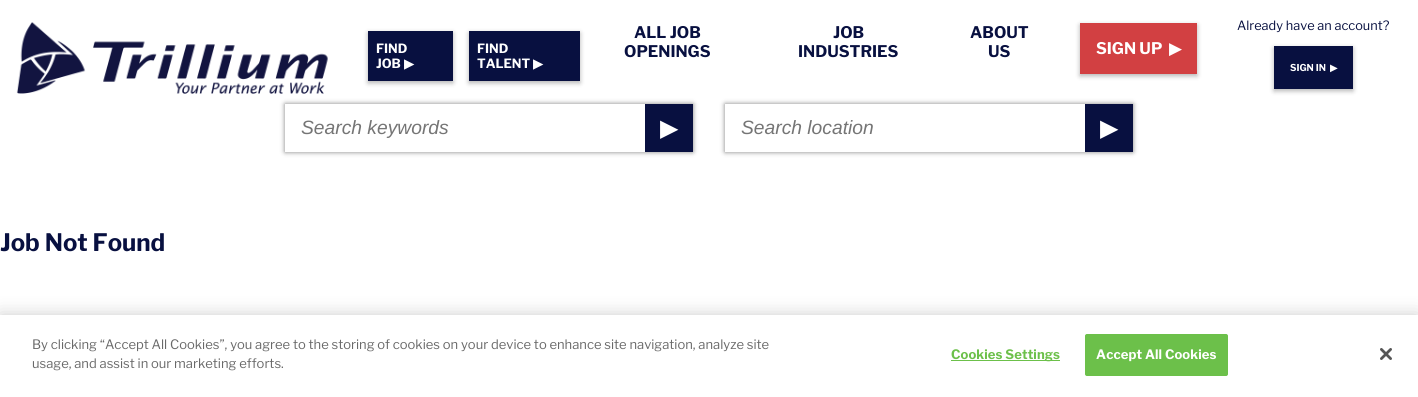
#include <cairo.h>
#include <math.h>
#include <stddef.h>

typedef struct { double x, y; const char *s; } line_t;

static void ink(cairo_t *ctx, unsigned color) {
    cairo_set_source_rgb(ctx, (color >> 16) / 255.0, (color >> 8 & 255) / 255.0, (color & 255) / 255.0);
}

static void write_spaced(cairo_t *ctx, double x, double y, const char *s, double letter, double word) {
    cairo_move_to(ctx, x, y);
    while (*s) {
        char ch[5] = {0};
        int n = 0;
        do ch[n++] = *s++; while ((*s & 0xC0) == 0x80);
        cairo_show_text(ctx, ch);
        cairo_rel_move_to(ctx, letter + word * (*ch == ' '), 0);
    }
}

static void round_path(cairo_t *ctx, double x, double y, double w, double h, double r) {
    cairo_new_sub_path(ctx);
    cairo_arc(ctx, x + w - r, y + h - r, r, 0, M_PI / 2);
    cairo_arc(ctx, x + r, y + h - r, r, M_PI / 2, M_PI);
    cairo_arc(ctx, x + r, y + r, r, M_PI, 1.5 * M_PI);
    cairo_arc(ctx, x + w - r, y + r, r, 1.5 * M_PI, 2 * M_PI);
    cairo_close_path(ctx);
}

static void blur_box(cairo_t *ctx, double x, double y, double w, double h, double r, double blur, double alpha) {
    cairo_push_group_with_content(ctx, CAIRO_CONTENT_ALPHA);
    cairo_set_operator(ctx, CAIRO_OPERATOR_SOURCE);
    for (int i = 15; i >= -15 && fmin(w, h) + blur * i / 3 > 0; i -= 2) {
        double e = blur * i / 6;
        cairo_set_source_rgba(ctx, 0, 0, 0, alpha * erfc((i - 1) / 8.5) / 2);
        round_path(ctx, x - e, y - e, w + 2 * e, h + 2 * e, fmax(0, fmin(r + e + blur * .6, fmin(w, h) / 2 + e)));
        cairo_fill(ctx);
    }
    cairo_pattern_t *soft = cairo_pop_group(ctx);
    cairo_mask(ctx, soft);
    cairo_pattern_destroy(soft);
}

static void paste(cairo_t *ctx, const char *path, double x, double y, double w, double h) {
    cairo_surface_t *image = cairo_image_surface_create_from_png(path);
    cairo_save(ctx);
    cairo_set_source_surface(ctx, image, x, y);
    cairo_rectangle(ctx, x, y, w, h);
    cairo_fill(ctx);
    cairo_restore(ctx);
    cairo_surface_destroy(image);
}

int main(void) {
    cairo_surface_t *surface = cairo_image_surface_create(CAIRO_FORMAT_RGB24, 1418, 397);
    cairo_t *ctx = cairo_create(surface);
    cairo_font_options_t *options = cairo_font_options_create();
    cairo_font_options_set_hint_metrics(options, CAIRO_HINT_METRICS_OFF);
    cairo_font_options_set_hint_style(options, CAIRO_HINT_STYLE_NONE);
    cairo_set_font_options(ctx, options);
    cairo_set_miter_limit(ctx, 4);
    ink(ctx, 0xFFFFFF);
    cairo_paint(ctx);
    paste(ctx, "media/1.png", 16, 22, 312, 72);
    ink(ctx, 0x000000);
    blur_box(ctx, 368, 33, 85, 50, 0, 2.5, 0.3);
    ink(ctx, 0x081040);
    cairo_rectangle(ctx, 368, 31, 85, 50);
    cairo_fill(ctx);
    cairo_select_font_face(ctx, "Libre Franklin", CAIRO_FONT_SLANT_NORMAL, CAIRO_FONT_WEIGHT_BOLD);
    cairo_set_font_size(ctx, 12.75);
    ink(ctx, 0xFFFFFF);
    cairo_move_to(ctx, 376, 53);
    cairo_show_text(ctx, "FIND");
    cairo_move_to(ctx, 376, 68);
    cairo_show_text(ctx, "JOB");
    cairo_select_font_face(ctx, "DejaVu Sans", CAIRO_FONT_SLANT_NORMAL, CAIRO_FONT_WEIGHT_BOLD);
    cairo_move_to(ctx, 404, 68);
    cairo_show_text(ctx, "▶");
    ink(ctx, 0x000000);
    blur_box(ctx, 469, 33, 111, 50, 0, 2.5, 0.3);
    ink(ctx, 0x081040);
    cairo_rectangle(ctx, 469, 31, 111, 50);
    cairo_fill(ctx);
    cairo_select_font_face(ctx, "Libre Franklin", CAIRO_FONT_SLANT_NORMAL, CAIRO_FONT_WEIGHT_BOLD);
    ink(ctx, 0xFFFFFF);
    cairo_move_to(ctx, 477, 53);
    cairo_show_text(ctx, "FIND");
    cairo_move_to(ctx, 477, 68);
    cairo_show_text(ctx, "TALENT");
    cairo_select_font_face(ctx, "DejaVu Sans", CAIRO_FONT_SLANT_NORMAL, CAIRO_FONT_WEIGHT_BOLD);
    cairo_move_to(ctx, 533, 68);
    cairo_show_text(ctx, "▶");
    cairo_select_font_face(ctx, "Libre Franklin", CAIRO_FONT_SLANT_NORMAL, CAIRO_FONT_WEIGHT_BOLD);
    cairo_set_font_size(ctx, 16);
    ink(ctx, 0x081040);
    {
        static const line_t items[] = {
            {634, 38, "ALL JOB"},
            {624, 57, "OPENINGS"},
            {833, 38, "JOB"},
            {798, 57, "INDUSTRIES"},
            {970, 38, "ABOUT"},
            {988, 57, "US"},
        };
        for (size_t i = 0; i < sizeof items / sizeof *items; i++) {
            cairo_move_to(ctx, items[i].x, items[i].y);
            cairo_show_text(ctx, items[i].s);
        }
    }
    ink(ctx, 0x000000);
    blur_box(ctx, 1080, 25, 117, 51, 0, 2.5, 0.3);
    ink(ctx, 0xD24042);
    cairo_rectangle(ctx, 1080, 23, 117, 51);
    cairo_fill(ctx);
    ink(ctx, 0xFFFFFF);
    cairo_move_to(ctx, 1096, 54);
    cairo_show_text(ctx, "SIGN UP");
    cairo_select_font_face(ctx, "DejaVu Sans", CAIRO_FONT_SLANT_NORMAL, CAIRO_FONT_WEIGHT_BOLD);
    cairo_move_to(ctx, 1169, 54);
    cairo_show_text(ctx, "▶");
    cairo_select_font_face(ctx, "Libre Franklin", CAIRO_FONT_SLANT_NORMAL, CAIRO_FONT_WEIGHT_NORMAL);
    cairo_set_font_size(ctx, 12.75);
    ink(ctx, 0x081040);
    cairo_move_to(ctx, 1237, 30);
    cairo_show_text(ctx, "Already have an account?");
    ink(ctx, 0x000000);
    blur_box(ctx, 1274, 48, 79, 43, 0, 2.5, 0.3);
    ink(ctx, 0x081040);
    cairo_rectangle(ctx, 1274, 46, 79, 43);
    cairo_fill(ctx);
    cairo_select_font_face(ctx, "Libre Franklin", CAIRO_FONT_SLANT_NORMAL, CAIRO_FONT_WEIGHT_BOLD);
    cairo_set_font_size(ctx, 9.5);
    ink(ctx, 0xFFFFFF);
    cairo_move_to(ctx, 1290, 71);
    cairo_show_text(ctx, "SIGN IN");
    cairo_select_font_face(ctx, "DejaVu Sans", CAIRO_FONT_SLANT_NORMAL, CAIRO_FONT_WEIGHT_BOLD);
    cairo_move_to(ctx, 1330, 71);
    cairo_show_text(ctx, "▶");
    cairo_save(ctx);
    cairo_set_fill_rule(ctx, CAIRO_FILL_RULE_EVEN_ODD);
    cairo_new_path(ctx);
    cairo_move_to(ctx, 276, 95);
    cairo_line_to(ctx, 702, 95);
    cairo_line_to(ctx, 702, 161);
    cairo_line_to(ctx, 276, 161);
    cairo_close_path(ctx);
    cairo_move_to(ctx, 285, 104);
    cairo_line_to(ctx, 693, 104);
    cairo_line_to(ctx, 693, 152);
    cairo_line_to(ctx, 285, 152);
    cairo_close_path(ctx);
    cairo_clip(ctx);
    ink(ctx, 0x000000);
    blur_box(ctx, 285, 104, 408, 48, 0, 2.5, 0.5);
    cairo_restore(ctx);
    cairo_select_font_face(ctx, "Liberation Sans", CAIRO_FONT_SLANT_ITALIC, CAIRO_FONT_WEIGHT_NORMAL);
    cairo_set_font_size(ctx, 19.25);
    ink(ctx, 0x757575);
    cairo_move_to(ctx, 301, 134);
    cairo_show_text(ctx, "Search keywords");
    ink(ctx, 0x081040);
    cairo_rectangle(ctx, 645, 104, 48, 48);
    cairo_fill(ctx);
    cairo_select_font_face(ctx, "DejaVu Sans", CAIRO_FONT_SLANT_NORMAL, CAIRO_FONT_WEIGHT_NORMAL);
    cairo_set_font_size(ctx, 24);
    ink(ctx, 0xFFFFFF);
    cairo_move_to(ctx, 660, 136);
    cairo_show_text(ctx, "▶");
    cairo_save(ctx);
    cairo_set_fill_rule(ctx, CAIRO_FILL_RULE_EVEN_ODD);
    cairo_new_path(ctx);
    cairo_move_to(ctx, 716, 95);
    cairo_line_to(ctx, 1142, 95);
    cairo_line_to(ctx, 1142, 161);
    cairo_line_to(ctx, 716, 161);
    cairo_close_path(ctx);
    cairo_move_to(ctx, 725, 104);
    cairo_line_to(ctx, 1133, 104);
    cairo_line_to(ctx, 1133, 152);
    cairo_line_to(ctx, 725, 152);
    cairo_close_path(ctx);
    cairo_clip(ctx);
    ink(ctx, 0x000000);
    blur_box(ctx, 725, 104, 408, 48, 0, 2.5, 0.5);
    cairo_restore(ctx);
    cairo_select_font_face(ctx, "Liberation Sans", CAIRO_FONT_SLANT_ITALIC, CAIRO_FONT_WEIGHT_NORMAL);
    cairo_set_font_size(ctx, 19.25);
    ink(ctx, 0x757575);
    cairo_move_to(ctx, 741, 134);
    cairo_show_text(ctx, "Search location");
    ink(ctx, 0x081040);
    cairo_rectangle(ctx, 1085, 104, 48, 48);
    cairo_fill(ctx);
    cairo_select_font_face(ctx, "DejaVu Sans", CAIRO_FONT_SLANT_NORMAL, CAIRO_FONT_WEIGHT_NORMAL);
    cairo_set_font_size(ctx, 24);
    ink(ctx, 0xFFFFFF);
    cairo_move_to(ctx, 1100, 136);
    cairo_show_text(ctx, "▶");
    cairo_select_font_face(ctx, "Libre Franklin", CAIRO_FONT_SLANT_NORMAL, CAIRO_FONT_WEIGHT_BOLD);
    ink(ctx, 0x081040);
    cairo_move_to(ctx, 0, 251);
    cairo_show_text(ctx, "Job Not Found");
    ink(ctx, 0x000000);
    blur_box(ctx, 0, 315, 1418, 82, 0, 9, 0.2);
    ink(ctx, 0xFFFFFF);
    cairo_rectangle(ctx, 0, 315, 1418, 82);
    cairo_fill(ctx);
    cairo_select_font_face(ctx, "Libre Franklin", CAIRO_FONT_SLANT_NORMAL, CAIRO_FONT_WEIGHT_NORMAL);
    cairo_set_font_size(ctx, 13);
    ink(ctx, 0x696969);
    cairo_move_to(ctx, 32, 349);
    cairo_show_text(ctx, "By clicking “Accept All Cookies”, you agree to the storing of cookies on your device to enhance site navigation, analyze site");
    cairo_move_to(ctx, 32, 368);
    cairo_show_text(ctx, "usage, and assist in our marketing efforts.");
    ink(ctx, 0x6CC04A);
    cairo_rectangle(ctx, 951, 360, 109, 1);
    cairo_fill(ctx);
    cairo_select_font_face(ctx, "Libre Franklin", CAIRO_FONT_SLANT_NORMAL, CAIRO_FONT_WEIGHT_BOLD);
    write_spaced(ctx, 951, 359, "Cookies Settings", 0.1, 0);
    round_path(ctx, 1085.5, 334.5, 142, 41, 1.5);
    cairo_fill_preserve(ctx);
    cairo_set_line_width(ctx, 1);
    cairo_stroke(ctx);
    ink(ctx, 0xFFFFFF);
    write_spaced(ctx, 1096, 359, "Accept All Cookies", 0.1, 0);
    paste(ctx, "media/2.png", 1380, 348, 12, 12);
    cairo_surface_write_to_png(surface, "image.png");
    cairo_font_options_destroy(options);
    cairo_destroy(ctx);
    cairo_surface_destroy(surface);
    return 0;
}
